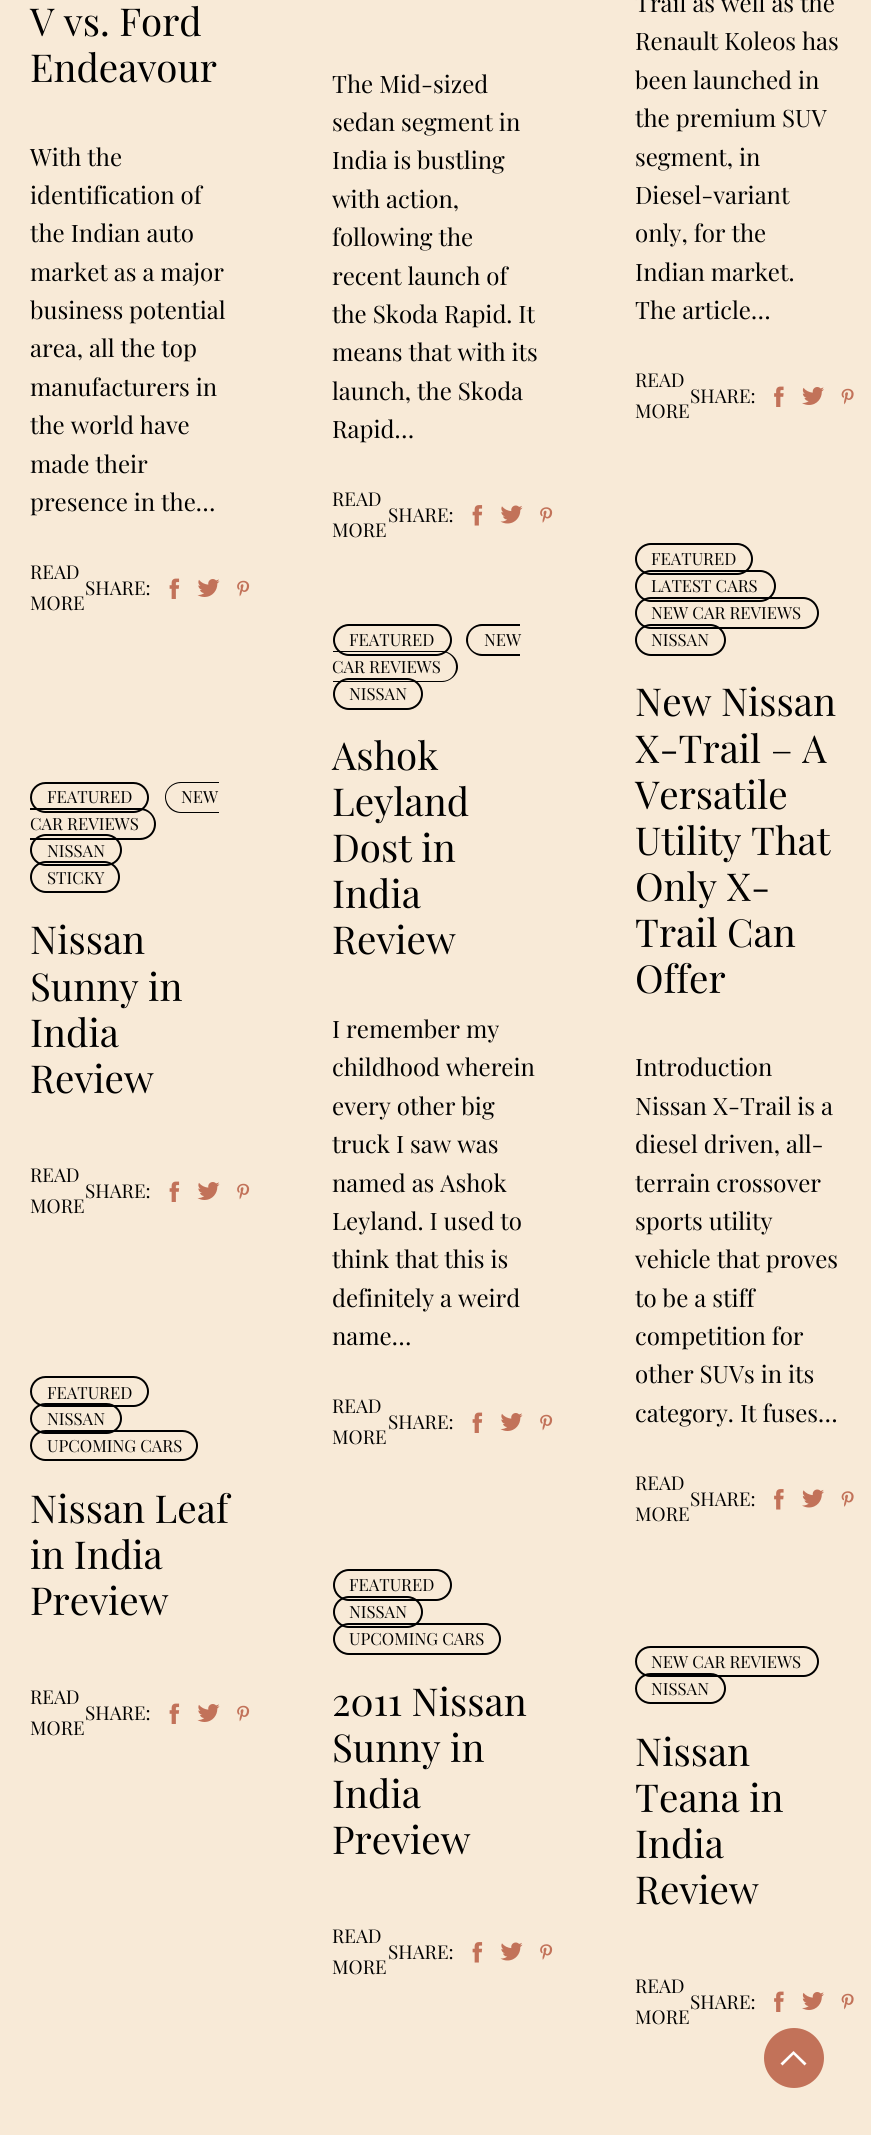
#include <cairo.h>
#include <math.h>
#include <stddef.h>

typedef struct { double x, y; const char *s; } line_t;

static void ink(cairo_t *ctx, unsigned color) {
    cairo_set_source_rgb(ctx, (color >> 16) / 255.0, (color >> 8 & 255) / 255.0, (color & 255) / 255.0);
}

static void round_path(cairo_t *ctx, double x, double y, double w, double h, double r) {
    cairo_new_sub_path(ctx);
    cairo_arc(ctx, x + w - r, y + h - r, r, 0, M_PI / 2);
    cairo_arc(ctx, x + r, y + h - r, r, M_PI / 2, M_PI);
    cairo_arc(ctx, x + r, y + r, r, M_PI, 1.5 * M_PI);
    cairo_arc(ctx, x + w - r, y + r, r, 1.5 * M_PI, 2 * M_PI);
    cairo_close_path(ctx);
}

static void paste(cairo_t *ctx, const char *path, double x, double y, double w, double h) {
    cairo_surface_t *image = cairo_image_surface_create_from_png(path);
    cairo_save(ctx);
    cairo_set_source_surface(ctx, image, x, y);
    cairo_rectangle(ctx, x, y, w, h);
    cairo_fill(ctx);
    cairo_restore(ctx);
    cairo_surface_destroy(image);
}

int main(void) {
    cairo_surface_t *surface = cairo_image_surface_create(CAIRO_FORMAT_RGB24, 871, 2135);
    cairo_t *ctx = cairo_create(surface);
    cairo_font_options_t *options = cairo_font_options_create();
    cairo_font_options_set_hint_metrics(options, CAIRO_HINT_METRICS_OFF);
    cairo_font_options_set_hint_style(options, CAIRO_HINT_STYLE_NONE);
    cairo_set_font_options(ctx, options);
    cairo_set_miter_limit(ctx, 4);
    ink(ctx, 0xF8EAD7);
    cairo_paint(ctx);
    cairo_select_font_face(ctx, "Playfair Display", CAIRO_FONT_SLANT_NORMAL, CAIRO_FONT_WEIGHT_NORMAL);
    cairo_set_font_size(ctx, 38.5);
    ink(ctx, 0x000000);
    cairo_move_to(ctx, 30, 36);
    cairo_show_text(ctx, "V vs. Ford");
    cairo_move_to(ctx, 30, 82);
    cairo_show_text(ctx, "Endeavour");
    cairo_set_font_size(ctx, 24);
    {
        static const line_t items[] = {
            {30, 166, "With the"},
            {30, 204, "identification of"},
            {30, 242, "the Indian auto"},
            {30, 281, "market as a major"},
            {30, 319, "business potential"},
            {30, 357, "area, all the top"},
            {30, 396, "manufacturers in"},
            {30, 434, "the world have"},
            {30, 473, "made their"},
            {30, 511, "presence in the…"},
        };
        for (size_t i = 0; i < sizeof items / sizeof *items; i++) {
            cairo_move_to(ctx, items[i].x, items[i].y);
            cairo_show_text(ctx, items[i].s);
        }
    }
    cairo_set_font_size(ctx, 19);
    {
        static const line_t items[] = {
            {30, 579, "READ"},
            {30, 610, "MORE"},
            {85, 595, "SHARE:"},
        };
        for (size_t i = 0; i < sizeof items / sizeof *items; i++) {
            cairo_move_to(ctx, items[i].x, items[i].y);
            cairo_show_text(ctx, items[i].s);
        }
    }
    paste(ctx, "media/1.png", 169, 578, 11, 21);
    paste(ctx, "media/2.png", 197, 579, 23, 18);
    paste(ctx, "media/3.png", 237, 580, 13, 17);
    cairo_set_font_size(ctx, 24);
    {
        static const line_t items[] = {
            {332, 93, "The Mid-sized"},
            {332, 131, "sedan segment in"},
            {332, 169, "India is bustling"},
            {332, 208, "with action,"},
            {332, 246, "following the"},
            {332, 285, "recent launch of"},
            {332, 323, "the Skoda Rapid. It"},
            {332, 361, "means that with its"},
            {332, 400, "launch, the Skoda"},
            {332, 438, "Rapid…"},
        };
        for (size_t i = 0; i < sizeof items / sizeof *items; i++) {
            cairo_move_to(ctx, items[i].x, items[i].y);
            cairo_show_text(ctx, items[i].s);
        }
    }
    cairo_set_font_size(ctx, 19);
    {
        static const line_t items[] = {
            {332, 506, "READ"},
            {332, 537, "MORE"},
            {388, 522, "SHARE:"},
        };
        for (size_t i = 0; i < sizeof items / sizeof *items; i++) {
            cairo_move_to(ctx, items[i].x, items[i].y);
            cairo_show_text(ctx, items[i].s);
        }
    }
    paste(ctx, "media/4.png", 472, 505, 11, 21);
    paste(ctx, "media/5.png", 500, 505, 23, 19);
    paste(ctx, "media/6.png", 540, 507, 13, 16);
    cairo_set_font_size(ctx, 24);
    {
        static const line_t items[] = {
            {635, 12, "Trail as well as the"},
            {635, 50, "Renault Koleos has"},
            {635, 89, "been launched in"},
            {635, 127, "the premium SUV"},
            {635, 166, "segment, in"},
            {635, 204, "Diesel-variant"},
            {635, 242, "only, for the"},
            {635, 281, "Indian market."},
            {635, 319, "The article…"},
        };
        for (size_t i = 0; i < sizeof items / sizeof *items; i++) {
            cairo_move_to(ctx, items[i].x, items[i].y);
            cairo_show_text(ctx, items[i].s);
        }
    }
    cairo_set_font_size(ctx, 19);
    {
        static const line_t items[] = {
            {635, 387, "READ"},
            {635, 418, "MORE"},
            {690, 403, "SHARE:"},
        };
        for (size_t i = 0; i < sizeof items / sizeof *items; i++) {
            cairo_move_to(ctx, items[i].x, items[i].y);
            cairo_show_text(ctx, items[i].s);
        }
    }
    paste(ctx, "media/7.png", 774, 386, 10, 21);
    paste(ctx, "media/8.png", 802, 387, 22, 18);
    paste(ctx, "media/9.png", 841, 388, 13, 17);
    round_path(ctx, 31, 783, 117, 29, 14.5);
    cairo_stroke(ctx);
    cairo_set_font_size(ctx, 16.75);
    cairo_move_to(ctx, 47, 803);
    cairo_show_text(ctx, "FEATURED");
    cairo_set_fill_rule(ctx, CAIRO_FILL_RULE_EVEN_ODD);
    cairo_new_path(ctx);
    cairo_move_to(ctx, 181, 782);
    cairo_line_to(ctx, 219, 782);
    cairo_line_to(ctx, 219, 813);
    cairo_line_to(ctx, 181, 813);
    cairo_curve_to(ctx, 172, 813, 165, 806, 165, 797);
    cairo_curve_to(ctx, 165, 789, 172, 782, 181, 782);
    cairo_close_path(ctx);
    cairo_move_to(ctx, 181, 783);
    cairo_line_to(ctx, 219, 783);
    cairo_line_to(ctx, 219, 812);
    cairo_line_to(ctx, 181, 812);
    cairo_curve_to(ctx, 173, 812, 166, 805, 166, 797);
    cairo_curve_to(ctx, 166, 789, 173, 783, 181, 783);
    cairo_close_path(ctx);
    cairo_fill(ctx);
    cairo_move_to(ctx, 181, 803);
    cairo_show_text(ctx, "NEW");
    cairo_new_path(ctx);
    cairo_move_to(ctx, 30, 808);
    cairo_line_to(ctx, 140, 808);
    cairo_curve_to(ctx, 149, 808, 156, 816, 156, 824);
    cairo_curve_to(ctx, 156, 833, 149, 840, 140, 840);
    cairo_line_to(ctx, 30, 840);
    cairo_close_path(ctx);
    cairo_move_to(ctx, 30, 810);
    cairo_line_to(ctx, 140, 810);
    cairo_curve_to(ctx, 148, 810, 154, 816, 154, 824);
    cairo_curve_to(ctx, 154, 832, 148, 838, 140, 838);
    cairo_line_to(ctx, 30, 838);
    cairo_close_path(ctx);
    cairo_fill(ctx);
    cairo_move_to(ctx, 30, 830);
    cairo_show_text(ctx, "CAR REVIEWS");
    round_path(ctx, 31, 835, 90, 30, 15);
    cairo_stroke(ctx);
    cairo_move_to(ctx, 47, 857);
    cairo_show_text(ctx, "NISSAN");
    round_path(ctx, 31, 862, 88, 30, 15);
    cairo_stroke(ctx);
    cairo_move_to(ctx, 47, 884);
    cairo_show_text(ctx, "STICKY");
    cairo_set_font_size(ctx, 38.5);
    {
        static const line_t items[] = {
            {30, 954, "Nissan"},
            {30, 1001, "Sunny in"},
            {30, 1047, "India"},
            {30, 1093, "Review"},
        };
        for (size_t i = 0; i < sizeof items / sizeof *items; i++) {
            cairo_move_to(ctx, items[i].x, items[i].y);
            cairo_show_text(ctx, items[i].s);
        }
    }
    cairo_set_font_size(ctx, 19);
    {
        static const line_t items[] = {
            {30, 1182, "READ"},
            {30, 1213, "MORE"},
            {85, 1198, "SHARE:"},
        };
        for (size_t i = 0; i < sizeof items / sizeof *items; i++) {
            cairo_move_to(ctx, items[i].x, items[i].y);
            cairo_show_text(ctx, items[i].s);
        }
    }
    paste(ctx, "media/1.png", 169, 1181, 11, 21);
    paste(ctx, "media/2.png", 197, 1182, 23, 18);
    paste(ctx, "media/3.png", 237, 1183, 13, 17);
    round_path(ctx, 334, 625, 117, 30, 15);
    cairo_stroke(ctx);
    cairo_set_font_size(ctx, 16.75);
    cairo_move_to(ctx, 349, 646);
    cairo_show_text(ctx, "FEATURED");
    cairo_new_path(ctx);
    cairo_move_to(ctx, 482, 624);
    cairo_line_to(ctx, 520, 624);
    cairo_line_to(ctx, 520, 656);
    cairo_line_to(ctx, 482, 656);
    cairo_curve_to(ctx, 474, 656, 466, 648, 466, 640);
    cairo_curve_to(ctx, 466, 631, 474, 624, 482, 624);
    cairo_close_path(ctx);
    cairo_move_to(ctx, 482, 626);
    cairo_line_to(ctx, 520, 626);
    cairo_line_to(ctx, 520, 654);
    cairo_line_to(ctx, 482, 654);
    cairo_curve_to(ctx, 474, 654, 468, 648, 468, 640);
    cairo_curve_to(ctx, 468, 632, 474, 626, 482, 626);
    cairo_close_path(ctx);
    cairo_fill(ctx);
    cairo_move_to(ctx, 484, 646);
    cairo_show_text(ctx, "NEW");
    cairo_new_path(ctx);
    cairo_move_to(ctx, 333, 651);
    cairo_line_to(ctx, 442, 651);
    cairo_curve_to(ctx, 450, 651, 458, 658, 458, 667);
    cairo_curve_to(ctx, 458, 675, 450, 682, 442, 682);
    cairo_line_to(ctx, 333, 682);
    cairo_close_path(ctx);
    cairo_move_to(ctx, 333, 652);
    cairo_line_to(ctx, 442, 652);
    cairo_curve_to(ctx, 450, 652, 456, 659, 456, 667);
    cairo_curve_to(ctx, 456, 675, 450, 681, 442, 681);
    cairo_line_to(ctx, 333, 681);
    cairo_close_path(ctx);
    cairo_fill(ctx);
    cairo_move_to(ctx, 332, 673);
    cairo_show_text(ctx, "CAR REVIEWS");
    round_path(ctx, 334, 679, 88, 30, 15);
    cairo_stroke(ctx);
    cairo_move_to(ctx, 349, 700);
    cairo_show_text(ctx, "NISSAN");
    cairo_set_font_size(ctx, 38.5);
    {
        static const line_t items[] = {
            {332, 770, "Ashok"},
            {332, 816, "Leyland"},
            {332, 862, "Dost in"},
            {332, 908, "India"},
            {332, 954, "Review"},
        };
        for (size_t i = 0; i < sizeof items / sizeof *items; i++) {
            cairo_move_to(ctx, items[i].x, items[i].y);
            cairo_show_text(ctx, items[i].s);
        }
    }
    cairo_set_font_size(ctx, 24);
    {
        static const line_t items[] = {
            {332, 1038, "I remember my"},
            {332, 1076, "childhood wherein"},
            {332, 1115, "every other big"},
            {332, 1153, "truck I saw was"},
            {332, 1192, "named as Ashok"},
            {332, 1230, "Leyland. I used to"},
            {332, 1268, "think that this is"},
            {332, 1307, "definitely a weird"},
            {332, 1345, "name…"},
        };
        for (size_t i = 0; i < sizeof items / sizeof *items; i++) {
            cairo_move_to(ctx, items[i].x, items[i].y);
            cairo_show_text(ctx, items[i].s);
        }
    }
    cairo_set_font_size(ctx, 19);
    {
        static const line_t items[] = {
            {332, 1413, "READ"},
            {332, 1444, "MORE"},
            {388, 1429, "SHARE:"},
        };
        for (size_t i = 0; i < sizeof items / sizeof *items; i++) {
            cairo_move_to(ctx, items[i].x, items[i].y);
            cairo_show_text(ctx, items[i].s);
        }
    }
    paste(ctx, "media/1.png", 472, 1412, 11, 21);
    paste(ctx, "media/2.png", 500, 1413, 23, 18);
    paste(ctx, "media/3.png", 540, 1414, 13, 17);
    round_path(ctx, 636, 544, 116, 30, 15);
    cairo_stroke(ctx);
    cairo_set_font_size(ctx, 16.75);
    cairo_move_to(ctx, 651, 565);
    cairo_show_text(ctx, "FEATURED");
    round_path(ctx, 636, 571, 139, 30, 15);
    cairo_stroke(ctx);
    cairo_move_to(ctx, 651, 592);
    cairo_show_text(ctx, "LATEST CARS");
    round_path(ctx, 636, 598, 182, 30, 15);
    cairo_stroke(ctx);
    cairo_move_to(ctx, 651, 619);
    cairo_show_text(ctx, "NEW CAR REVIEWS");
    round_path(ctx, 636, 625, 89, 30, 15);
    cairo_stroke(ctx);
    cairo_move_to(ctx, 651, 646);
    cairo_show_text(ctx, "NISSAN");
    cairo_set_font_size(ctx, 38.5);
    {
        static const line_t items[] = {
            {635, 716, "New Nissan"},
            {635, 763, "X-Trail – A"},
            {635, 809, "Versatile"},
            {635, 855, "Utility That"},
            {635, 901, "Only X-"},
            {635, 947, "Trail Can"},
            {635, 993, "Offer"},
        };
        for (size_t i = 0; i < sizeof items / sizeof *items; i++) {
            cairo_move_to(ctx, items[i].x, items[i].y);
            cairo_show_text(ctx, items[i].s);
        }
    }
    cairo_set_font_size(ctx, 24);
    {
        static const line_t items[] = {
            {635, 1076, "Introduction"},
            {635, 1115, "Nissan X-Trail is a"},
            {635, 1153, "diesel driven, all-"},
            {635, 1192, "terrain crossover"},
            {635, 1230, "sports utility"},
            {635, 1268, "vehicle that proves"},
            {635, 1307, "to be a stiff"},
            {635, 1345, "competition for"},
            {635, 1383, "other SUVs in its"},
            {635, 1422, "category. It fuses…"},
        };
        for (size_t i = 0; i < sizeof items / sizeof *items; i++) {
            cairo_move_to(ctx, items[i].x, items[i].y);
            cairo_show_text(ctx, items[i].s);
        }
    }
    cairo_set_font_size(ctx, 19);
    {
        static const line_t items[] = {
            {635, 1490, "READ"},
            {635, 1521, "MORE"},
            {690, 1506, "SHARE:"},
        };
        for (size_t i = 0; i < sizeof items / sizeof *items; i++) {
            cairo_move_to(ctx, items[i].x, items[i].y);
            cairo_show_text(ctx, items[i].s);
        }
    }
    paste(ctx, "media/10.png", 774, 1489, 10, 21);
    paste(ctx, "media/11.png", 802, 1489, 22, 19);
    paste(ctx, "media/12.png", 841, 1491, 13, 16);
    round_path(ctx, 31, 1377, 117, 29, 14.5);
    cairo_stroke(ctx);
    cairo_set_font_size(ctx, 16.75);
    cairo_move_to(ctx, 47, 1399);
    cairo_show_text(ctx, "FEATURED");
    round_path(ctx, 31, 1404, 90, 29, 14.5);
    cairo_stroke(ctx);
    cairo_move_to(ctx, 47, 1425);
    cairo_show_text(ctx, "NISSAN");
    round_path(ctx, 31, 1431, 166, 29, 14.5);
    cairo_stroke(ctx);
    cairo_move_to(ctx, 47, 1452);
    cairo_show_text(ctx, "UPCOMING CARS");
    cairo_set_font_size(ctx, 38.5);
    {
        static const line_t items[] = {
            {30, 1523, "Nissan Leaf"},
            {30, 1569, "in India"},
            {30, 1615, "Preview"},
        };
        for (size_t i = 0; i < sizeof items / sizeof *items; i++) {
            cairo_move_to(ctx, items[i].x, items[i].y);
            cairo_show_text(ctx, items[i].s);
        }
    }
    cairo_set_font_size(ctx, 19);
    {
        static const line_t items[] = {
            {30, 1704, "READ"},
            {30, 1735, "MORE"},
            {85, 1720, "SHARE:"},
        };
        for (size_t i = 0; i < sizeof items / sizeof *items; i++) {
            cairo_move_to(ctx, items[i].x, items[i].y);
            cairo_show_text(ctx, items[i].s);
        }
    }
    paste(ctx, "media/1.png", 169, 1703, 11, 21);
    paste(ctx, "media/2.png", 197, 1704, 23, 18);
    paste(ctx, "media/3.png", 237, 1705, 13, 17);
    round_path(ctx, 334, 1570, 117, 30, 15);
    cairo_stroke(ctx);
    cairo_set_font_size(ctx, 16.75);
    cairo_move_to(ctx, 349, 1591);
    cairo_show_text(ctx, "FEATURED");
    round_path(ctx, 334, 1597, 88, 30, 15);
    cairo_stroke(ctx);
    cairo_move_to(ctx, 349, 1618);
    cairo_show_text(ctx, "NISSAN");
    round_path(ctx, 334, 1624, 166, 30, 15);
    cairo_stroke(ctx);
    cairo_move_to(ctx, 349, 1645);
    cairo_show_text(ctx, "UPCOMING CARS");
    cairo_set_font_size(ctx, 38.5);
    {
        static const line_t items[] = {
            {332, 1716, "2011 Nissan"},
            {332, 1762, "Sunny in"},
            {332, 1808, "India"},
            {332, 1854, "Preview"},
        };
        for (size_t i = 0; i < sizeof items / sizeof *items; i++) {
            cairo_move_to(ctx, items[i].x, items[i].y);
            cairo_show_text(ctx, items[i].s);
        }
    }
    cairo_set_font_size(ctx, 19);
    {
        static const line_t items[] = {
            {332, 1943, "READ"},
            {332, 1974, "MORE"},
            {388, 1959, "SHARE:"},
        };
        for (size_t i = 0; i < sizeof items / sizeof *items; i++) {
            cairo_move_to(ctx, items[i].x, items[i].y);
            cairo_show_text(ctx, items[i].s);
        }
    }
    paste(ctx, "media/4.png", 472, 1942, 11, 21);
    paste(ctx, "media/5.png", 500, 1942, 23, 19);
    paste(ctx, "media/6.png", 540, 1944, 13, 16);
    round_path(ctx, 636, 1647, 182, 29, 14.5);
    cairo_stroke(ctx);
    cairo_set_font_size(ctx, 16.75);
    cairo_move_to(ctx, 651, 1668);
    cairo_show_text(ctx, "NEW CAR REVIEWS");
    round_path(ctx, 636, 1674, 89, 29, 14.5);
    cairo_stroke(ctx);
    cairo_move_to(ctx, 651, 1695);
    cairo_show_text(ctx, "NISSAN");
    cairo_set_font_size(ctx, 38.5);
    {
        static const line_t items[] = {
            {635, 1766, "Nissan"},
            {635, 1812, "Teana in"},
            {635, 1858, "India"},
            {635, 1904, "Review"},
        };
        for (size_t i = 0; i < sizeof items / sizeof *items; i++) {
            cairo_move_to(ctx, items[i].x, items[i].y);
            cairo_show_text(ctx, items[i].s);
        }
    }
    cairo_set_font_size(ctx, 19);
    {
        static const line_t items[] = {
            {635, 1993, "READ"},
            {635, 2024, "MORE"},
            {690, 2009, "SHARE:"},
        };
        for (size_t i = 0; i < sizeof items / sizeof *items; i++) {
            cairo_move_to(ctx, items[i].x, items[i].y);
            cairo_show_text(ctx, items[i].s);
        }
    }
    paste(ctx, "media/7.png", 774, 1991, 10, 21);
    paste(ctx, "media/8.png", 802, 1992, 22, 18);
    paste(ctx, "media/9.png", 841, 1993, 13, 17);
    ink(ctx, 0xC27259);
    cairo_arc(ctx, 794, 2058, 30, 0, 2 * M_PI);
    cairo_fill(ctx);
    ink(ctx, 0xFFFFFF);
    cairo_set_fill_rule(ctx, CAIRO_FILL_RULE_WINDING);
    cairo_new_path(ctx);
    cairo_move_to(ctx, 806.5, 2063.5);
    cairo_line_to(ctx, 804.5, 2065.5);
    cairo_line_to(ctx, 793.5, 2054.5);
    cairo_line_to(ctx, 782.5, 2065.5);
    cairo_line_to(ctx, 780.5, 2063.5);
    cairo_line_to(ctx, 793.5, 2051);
    cairo_line_to(ctx, 806.5, 2063.5);
    cairo_fill(ctx);
    cairo_surface_write_to_png(surface, "image.png");
    cairo_font_options_destroy(options);
    cairo_destroy(ctx);
    cairo_surface_destroy(surface);
    return 0;
}
